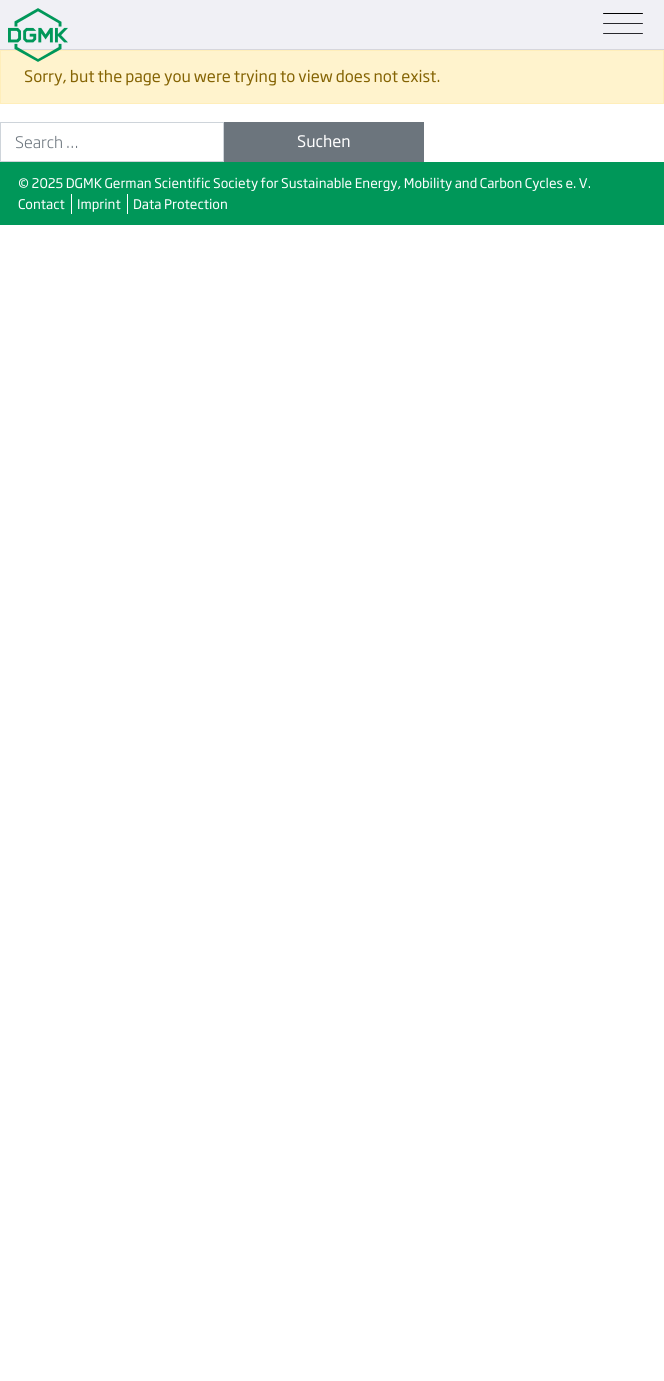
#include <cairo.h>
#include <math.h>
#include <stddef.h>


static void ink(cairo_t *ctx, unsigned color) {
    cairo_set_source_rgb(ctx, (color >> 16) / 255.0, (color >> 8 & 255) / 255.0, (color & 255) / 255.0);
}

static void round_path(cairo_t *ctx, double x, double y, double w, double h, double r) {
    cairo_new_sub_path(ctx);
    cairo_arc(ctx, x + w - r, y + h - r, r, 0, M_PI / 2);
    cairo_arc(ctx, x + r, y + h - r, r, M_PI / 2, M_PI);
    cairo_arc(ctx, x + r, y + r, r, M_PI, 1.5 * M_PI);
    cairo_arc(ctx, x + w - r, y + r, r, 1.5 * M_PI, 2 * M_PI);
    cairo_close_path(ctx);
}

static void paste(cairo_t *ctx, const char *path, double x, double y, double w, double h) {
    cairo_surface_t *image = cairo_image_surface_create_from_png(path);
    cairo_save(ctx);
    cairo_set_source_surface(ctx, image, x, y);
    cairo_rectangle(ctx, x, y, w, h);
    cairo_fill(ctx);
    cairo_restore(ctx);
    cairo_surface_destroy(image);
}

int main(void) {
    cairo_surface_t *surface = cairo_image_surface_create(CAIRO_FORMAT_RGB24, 664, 1381);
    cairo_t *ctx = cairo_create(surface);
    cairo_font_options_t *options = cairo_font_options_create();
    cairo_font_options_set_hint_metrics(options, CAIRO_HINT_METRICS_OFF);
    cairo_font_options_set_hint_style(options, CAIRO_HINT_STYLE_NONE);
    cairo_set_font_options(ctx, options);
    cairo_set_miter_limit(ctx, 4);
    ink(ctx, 0xFFFFFF);
    cairo_paint(ctx);
    ink(ctx, 0xF0F0F5);
    cairo_rectangle(ctx, 0, 0, 664, 49);
    cairo_fill(ctx);
    ink(ctx, 0xD6D6DC);
    cairo_rectangle(ctx, 0, 49, 664, 1);
    cairo_fill(ctx);
    ink(ctx, 0xFFF3CD);
    cairo_rectangle(ctx, 0.5, 50.5, 663, 53);
    cairo_fill_preserve(ctx);
    ink(ctx, 0xFFEEBA);
    cairo_set_line_width(ctx, 1);
    cairo_stroke(ctx);
    paste(ctx, "media/1.png", 8, 8, 60, 54);
    ink(ctx, 0x000000);
    round_path(ctx, 603, 13, 40, 1, 0.5);
    cairo_fill(ctx);
    ink(ctx, 0x28282D);
    round_path(ctx, 603, 23, 40, 1, 0.5);
    cairo_fill(ctx);
    round_path(ctx, 603, 33, 40, 1, 0.5);
    cairo_fill(ctx);
    cairo_select_font_face(ctx, "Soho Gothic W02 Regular", CAIRO_FONT_SLANT_NORMAL, CAIRO_FONT_WEIGHT_NORMAL);
    cairo_set_font_size(ctx, 15.65);
    ink(ctx, 0x856404);
    cairo_move_to(ctx, 24, 82);
    cairo_show_text(ctx, "Sorry, but the page you were trying to view does not exist.");
    cairo_rectangle(ctx, 0.5, 122.5, 223, 39);
    ink(ctx, 0xCED4DA);
    cairo_stroke(ctx);
    cairo_select_font_face(ctx, "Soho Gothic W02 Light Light", CAIRO_FONT_SLANT_NORMAL, CAIRO_FONT_WEIGHT_NORMAL);
    ink(ctx, 0x6C757D);
    cairo_move_to(ctx, 15, 148);
    cairo_show_text(ctx, "Search …");
    cairo_rectangle(ctx, 224, 122, 200, 40);
    cairo_fill(ctx);
    cairo_select_font_face(ctx, "Soho Gothic W02 Regular", CAIRO_FONT_SLANT_NORMAL, CAIRO_FONT_WEIGHT_NORMAL);
    ink(ctx, 0xFFFFFF);
    cairo_move_to(ctx, 297, 147);
    cairo_show_text(ctx, "Suchen");
    ink(ctx, 0x009759);
    cairo_rectangle(ctx, 0, 162, 664, 63);
    cairo_fill(ctx);
    cairo_set_font_size(ctx, 13.15);
    ink(ctx, 0xFFFFFF);
    cairo_move_to(ctx, 18, 188);
    cairo_show_text(ctx, "© 2025 DGMK German Scientific Society for Sustainable Energy, Mobility and Carbon Cycles e. V.");
    cairo_rectangle(ctx, 71, 194, 1, 20);
    cairo_fill(ctx);
    cairo_move_to(ctx, 18, 209);
    cairo_show_text(ctx, "Contact");
    cairo_rectangle(ctx, 127, 194, 1, 20);
    cairo_fill(ctx);
    cairo_move_to(ctx, 77, 209);
    cairo_show_text(ctx, "Imprint");
    cairo_move_to(ctx, 133, 209);
    cairo_show_text(ctx, "Data Protection");
    cairo_surface_write_to_png(surface, "image.png");
    cairo_font_options_destroy(options);
    cairo_destroy(ctx);
    cairo_surface_destroy(surface);
    return 0;
}
